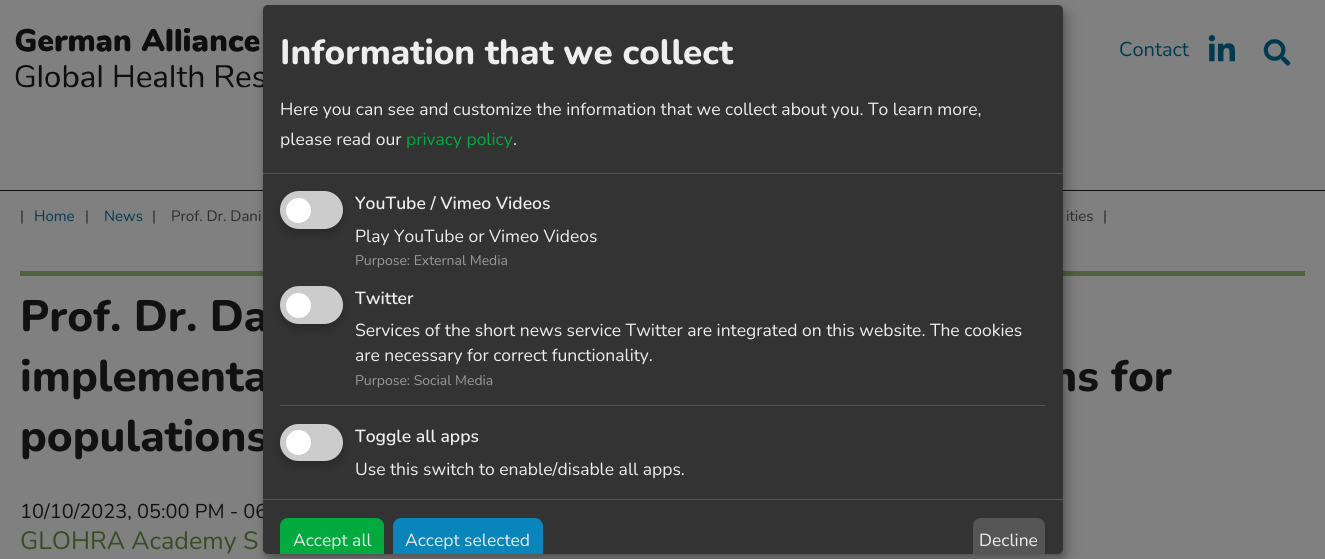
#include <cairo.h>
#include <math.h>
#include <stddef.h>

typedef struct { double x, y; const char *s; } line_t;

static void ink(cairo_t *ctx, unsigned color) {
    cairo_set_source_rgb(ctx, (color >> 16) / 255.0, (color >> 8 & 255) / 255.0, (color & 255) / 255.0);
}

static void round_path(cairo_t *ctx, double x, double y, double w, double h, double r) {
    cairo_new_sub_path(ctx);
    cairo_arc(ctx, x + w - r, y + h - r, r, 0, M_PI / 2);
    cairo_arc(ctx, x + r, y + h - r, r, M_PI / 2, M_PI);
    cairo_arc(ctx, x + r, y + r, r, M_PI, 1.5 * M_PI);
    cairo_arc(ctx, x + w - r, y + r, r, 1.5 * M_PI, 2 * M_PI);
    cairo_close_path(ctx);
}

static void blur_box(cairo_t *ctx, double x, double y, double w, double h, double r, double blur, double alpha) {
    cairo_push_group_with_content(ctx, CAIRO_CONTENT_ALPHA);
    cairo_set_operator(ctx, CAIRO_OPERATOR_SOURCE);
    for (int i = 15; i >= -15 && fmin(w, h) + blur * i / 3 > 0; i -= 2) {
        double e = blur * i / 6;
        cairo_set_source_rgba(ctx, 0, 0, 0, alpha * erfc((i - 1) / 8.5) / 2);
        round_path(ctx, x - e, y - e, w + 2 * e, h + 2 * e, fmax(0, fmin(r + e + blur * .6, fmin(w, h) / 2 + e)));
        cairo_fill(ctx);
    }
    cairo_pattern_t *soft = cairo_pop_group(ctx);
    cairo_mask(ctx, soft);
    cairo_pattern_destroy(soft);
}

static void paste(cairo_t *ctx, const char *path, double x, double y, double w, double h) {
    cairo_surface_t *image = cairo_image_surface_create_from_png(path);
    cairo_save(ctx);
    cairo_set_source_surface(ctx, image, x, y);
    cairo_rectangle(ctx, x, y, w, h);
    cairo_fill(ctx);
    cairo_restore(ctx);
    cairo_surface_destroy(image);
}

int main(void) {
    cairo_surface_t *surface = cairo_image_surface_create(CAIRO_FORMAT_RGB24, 1325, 559);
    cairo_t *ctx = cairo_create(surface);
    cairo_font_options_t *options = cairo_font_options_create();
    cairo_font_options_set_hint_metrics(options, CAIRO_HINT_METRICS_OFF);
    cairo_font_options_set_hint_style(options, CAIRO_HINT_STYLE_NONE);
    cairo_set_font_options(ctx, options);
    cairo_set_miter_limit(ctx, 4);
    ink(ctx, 0x808080);
    cairo_paint(ctx);
    ink(ctx, 0x111111);
    cairo_rectangle(ctx, 0, 190, 1325, 1);
    cairo_fill(ctx);
    paste(ctx, "media/1.png", 15, 27, 248, 61);
    ink(ctx, 0x50623C);
    cairo_rectangle(ctx, 20, 271, 1285, 5);
    cairo_fill(ctx);
    ink(ctx, 0x000000);
    blur_box(ctx, 269, 11, 800, 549, 5, 6, 0.19);
    blur_box(ctx, 263, 10, 800, 549, 5, 4, 0.2);
    cairo_select_font_face(ctx, "Nunito ExtraBold", CAIRO_FONT_SLANT_NORMAL, CAIRO_FONT_WEIGHT_NORMAL);
    cairo_set_font_size(ctx, 44);
    ink(ctx, 0x111111);
    {
        static const line_t items[] = {
            {20, 331, "Prof. Dr. Da"},
            {20, 391, "implementa"},
            {1051, 391, "ns for"},
            {20, 451, "populations"},
        };
        for (size_t i = 0; i < sizeof items / sizeof *items; i++) {
            cairo_move_to(ctx, items[i].x, items[i].y);
            cairo_show_text(ctx, items[i].s);
        }
    }
    cairo_select_font_face(ctx, "Nunito", CAIRO_FONT_SLANT_NORMAL, CAIRO_FONT_WEIGHT_NORMAL);
    cairo_set_font_size(ctx, 20);
    cairo_move_to(ctx, 20, 518);
    cairo_show_text(ctx, "10/10/2023, 05:00 PM - 06");
    ink(ctx, 0x333333);
    round_path(ctx, 263, 5, 800, 549, 5);
    cairo_fill(ctx);
    ink(ctx, 0x555555);
    cairo_rectangle(ctx, 263, 173, 800, 1);
    cairo_fill(ctx);
    cairo_select_font_face(ctx, "Nunito ExtraBold", CAIRO_FONT_SLANT_NORMAL, CAIRO_FONT_WEIGHT_NORMAL);
    cairo_set_font_size(ctx, 35);
    ink(ctx, 0xEEEEEE);
    cairo_move_to(ctx, 280, 64);
    cairo_show_text(ctx, "Information that we collect");
    cairo_select_font_face(ctx, "Nunito", CAIRO_FONT_SLANT_NORMAL, CAIRO_FONT_WEIGHT_NORMAL);
    cairo_set_font_size(ctx, 17.5);
    cairo_move_to(ctx, 280, 115);
    cairo_show_text(ctx, "Here you can see and customize the information that we collect about you. To learn more,");
    cairo_move_to(ctx, 280, 145);
    cairo_show_text(ctx, "please read our");
    ink(ctx, 0x00AA3E);
    cairo_move_to(ctx, 406, 145);
    cairo_show_text(ctx, "privacy policy");
    ink(ctx, 0xEEEEEE);
    cairo_move_to(ctx, 513, 145);
    cairo_show_text(ctx, ".");
    ink(ctx, 0x000000);
    blur_box(ctx, 280, 196, 63, 38, 19, 4, 0.2);
    ink(ctx, 0xCCCCCC);
    round_path(ctx, 280, 191, 63, 38, 19);
    cairo_fill(ctx);
    ink(ctx, 0xFFFFFF);
    cairo_arc(ctx, 298.5, 210.5, 12.5, 0, 2 * M_PI);
    cairo_fill(ctx);
    cairo_select_font_face(ctx, "Nunito SemiBold", CAIRO_FONT_SLANT_NORMAL, CAIRO_FONT_WEIGHT_NORMAL);
    ink(ctx, 0xEEEEEE);
    cairo_move_to(ctx, 355, 209);
    cairo_show_text(ctx, "YouTube / Vimeo Videos");
    cairo_select_font_face(ctx, "Nunito", CAIRO_FONT_SLANT_NORMAL, CAIRO_FONT_WEIGHT_NORMAL);
    cairo_move_to(ctx, 355, 242);
    cairo_show_text(ctx, "Play YouTube or Vimeo Videos");
    cairo_set_font_size(ctx, 14);
    ink(ctx, 0x999999);
    cairo_move_to(ctx, 355, 265);
    cairo_show_text(ctx, "Purpose: External Media");
    ink(ctx, 0x000000);
    blur_box(ctx, 280, 291, 63, 38, 19, 4, 0.2);
    ink(ctx, 0xCCCCCC);
    round_path(ctx, 280, 286, 63, 38, 19);
    cairo_fill(ctx);
    ink(ctx, 0xFFFFFF);
    cairo_arc(ctx, 298.5, 305.5, 12.5, 0, 2 * M_PI);
    cairo_fill(ctx);
    cairo_select_font_face(ctx, "Nunito SemiBold", CAIRO_FONT_SLANT_NORMAL, CAIRO_FONT_WEIGHT_NORMAL);
    cairo_set_font_size(ctx, 17.5);
    ink(ctx, 0xEEEEEE);
    cairo_move_to(ctx, 355, 304);
    cairo_show_text(ctx, "Twitter");
    cairo_select_font_face(ctx, "Nunito", CAIRO_FONT_SLANT_NORMAL, CAIRO_FONT_WEIGHT_NORMAL);
    cairo_move_to(ctx, 355, 336);
    cairo_show_text(ctx, "Services of the short news service Twitter are integrated on this website. The cookies");
    cairo_move_to(ctx, 355, 361);
    cairo_show_text(ctx, "are necessary for correct functionality.");
    cairo_set_font_size(ctx, 14);
    ink(ctx, 0x999999);
    cairo_move_to(ctx, 355, 385);
    cairo_show_text(ctx, "Purpose: Social Media");
    ink(ctx, 0x555555);
    cairo_rectangle(ctx, 280, 405, 765, 1);
    cairo_fill(ctx);
    ink(ctx, 0x000000);
    blur_box(ctx, 280, 429, 63, 37, 18.5, 4, 0.2);
    ink(ctx, 0xCCCCCC);
    round_path(ctx, 280, 424, 63, 37, 18.5);
    cairo_fill(ctx);
    ink(ctx, 0xFFFFFF);
    cairo_arc(ctx, 298.5, 442.5, 12.5, 0, 2 * M_PI);
    cairo_fill(ctx);
    cairo_select_font_face(ctx, "Nunito SemiBold", CAIRO_FONT_SLANT_NORMAL, CAIRO_FONT_WEIGHT_NORMAL);
    cairo_set_font_size(ctx, 17.5);
    ink(ctx, 0xEEEEEE);
    cairo_move_to(ctx, 355, 442);
    cairo_show_text(ctx, "Toggle all apps");
    cairo_select_font_face(ctx, "Nunito", CAIRO_FONT_SLANT_NORMAL, CAIRO_FONT_WEIGHT_NORMAL);
    cairo_move_to(ctx, 355, 475);
    cairo_show_text(ctx, "Use this switch to enable/disable all apps.");
    ink(ctx, 0x555555);
    cairo_rectangle(ctx, 263, 499, 800, 1);
    cairo_fill(ctx);
    ink(ctx, 0x00AA3E);
    cairo_new_path(ctx);
    cairo_move_to(ctx, 288, 518);
    cairo_line_to(ctx, 376, 518);
    cairo_curve_to(ctx, 380.5, 518, 384, 521.5, 384, 526);
    cairo_line_to(ctx, 384, 554);
    cairo_line_to(ctx, 280, 554);
    cairo_line_to(ctx, 280, 526);
    cairo_curve_to(ctx, 280, 521.5, 283.5, 518, 288, 518);
    cairo_close_path(ctx);
    cairo_fill(ctx);
    ink(ctx, 0xEEEEEE);
    cairo_move_to(ctx, 293, 546);
    cairo_show_text(ctx, "Accept all");
    ink(ctx, 0x0885BA);
    cairo_new_path(ctx);
    cairo_move_to(ctx, 401, 518);
    cairo_line_to(ctx, 535, 518);
    cairo_curve_to(ctx, 539.5, 518, 543, 521.5, 543, 526);
    cairo_line_to(ctx, 543, 554);
    cairo_line_to(ctx, 393, 554);
    cairo_line_to(ctx, 393, 526);
    cairo_curve_to(ctx, 393, 521.5, 396.5, 518, 401, 518);
    cairo_close_path(ctx);
    cairo_fill(ctx);
    ink(ctx, 0xEEEEEE);
    cairo_move_to(ctx, 405, 546);
    cairo_show_text(ctx, "Accept selected");
    ink(ctx, 0x555555);
    cairo_new_path(ctx);
    cairo_move_to(ctx, 981, 518);
    cairo_line_to(ctx, 1037, 518);
    cairo_curve_to(ctx, 1041.5, 518, 1045, 521.5, 1045, 526);
    cairo_line_to(ctx, 1045, 554);
    cairo_line_to(ctx, 973, 554);
    cairo_line_to(ctx, 973, 526);
    cairo_curve_to(ctx, 973, 521.5, 976.5, 518, 981, 518);
    cairo_close_path(ctx);
    cairo_fill(ctx);
    ink(ctx, 0xEEEEEE);
    cairo_move_to(ctx, 979, 546);
    cairo_show_text(ctx, "Decline");
    cairo_set_font_size(ctx, 20);
    ink(ctx, 0x003A50);
    cairo_move_to(ctx, 1119, 56);
    cairo_show_text(ctx, "Contact");
    paste(ctx, "media/2.png", 1208, 35, 27, 27);
    paste(ctx, "media/3.png", 1263, 39, 28, 27);
    cairo_set_font_size(ctx, 15);
    ink(ctx, 0x2B2B2B);
    cairo_move_to(ctx, 20, 221);
    cairo_show_text(ctx, "|");
    ink(ctx, 0x003A50);
    cairo_move_to(ctx, 34, 221);
    cairo_show_text(ctx, "Home");
    ink(ctx, 0x2B2B2B);
    cairo_move_to(ctx, 85, 221);
    cairo_show_text(ctx, "|");
    ink(ctx, 0x003A50);
    cairo_move_to(ctx, 104, 221);
    cairo_show_text(ctx, "News");
    ink(ctx, 0x2B2B2B);
    {
        static const line_t items[] = {
            {152, 221, "|"},
            {171, 221, "Prof. Dr. Dani"},
            {1066, 221, "ities"},
            {1103, 221, "|"},
        };
        for (size_t i = 0; i < sizeof items / sizeof *items; i++) {
            cairo_move_to(ctx, items[i].x, items[i].y);
            cairo_show_text(ctx, items[i].s);
        }
    }
    cairo_set_font_size(ctx, 25);
    ink(ctx, 0x374C1F);
    cairo_move_to(ctx, 20, 549);
    cairo_show_text(ctx, "GLOHRA Academy S");
    cairo_surface_write_to_png(surface, "image.png");
    cairo_font_options_destroy(options);
    cairo_destroy(ctx);
    cairo_surface_destroy(surface);
    return 0;
}
